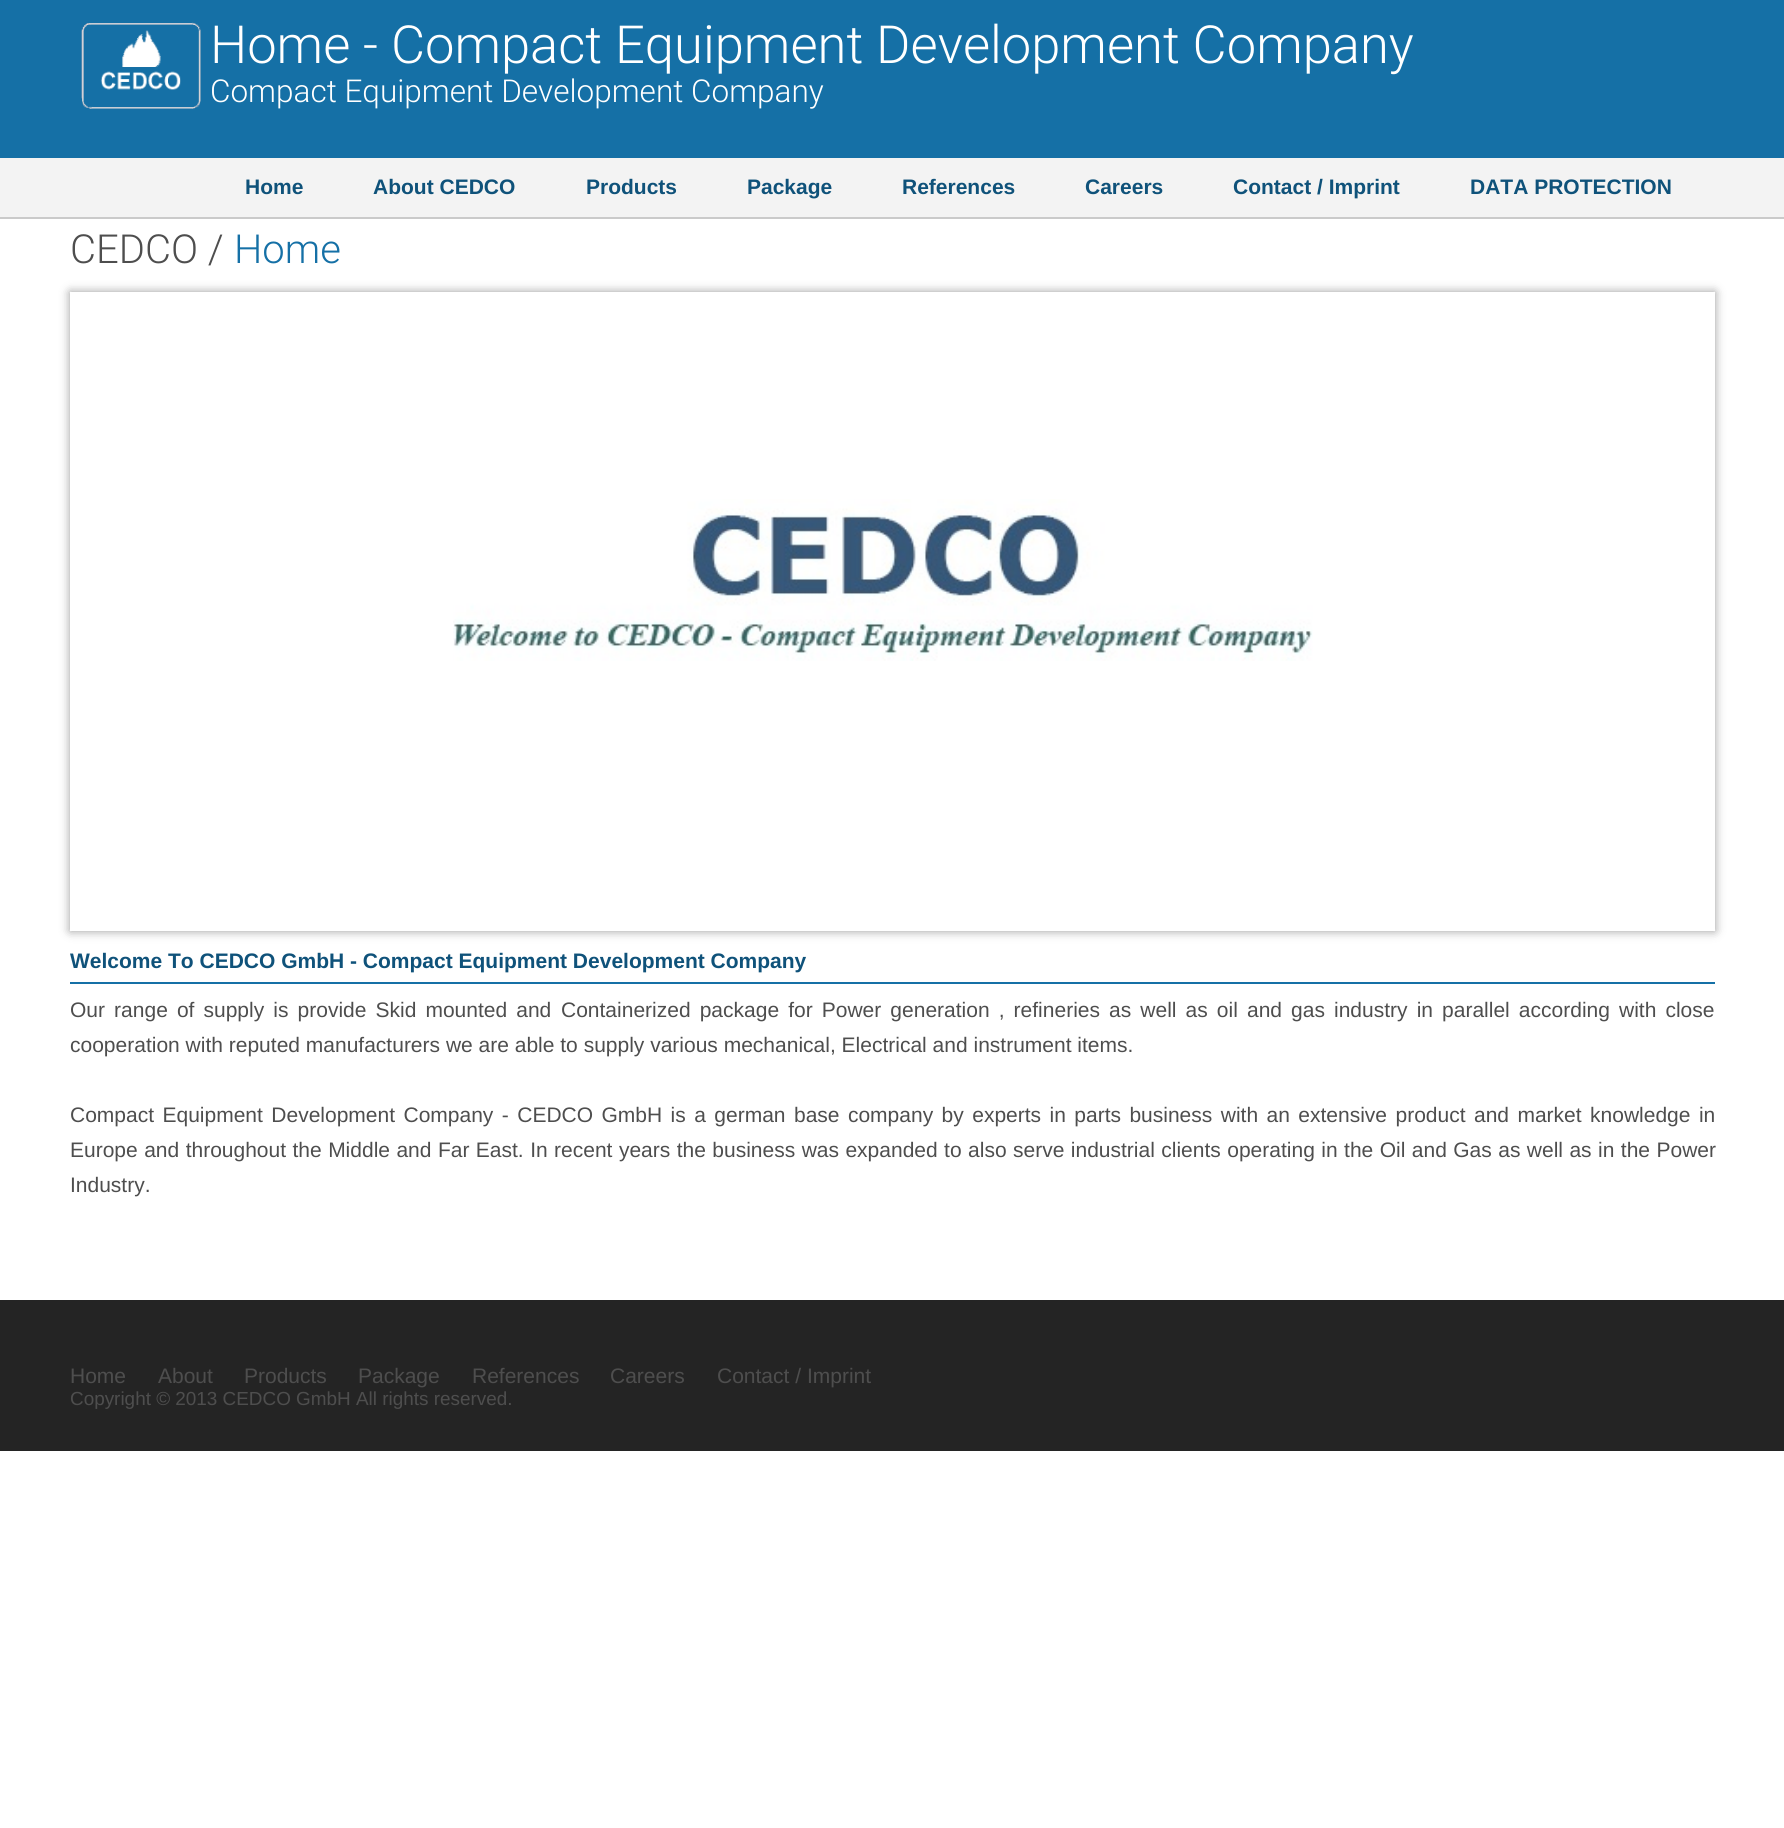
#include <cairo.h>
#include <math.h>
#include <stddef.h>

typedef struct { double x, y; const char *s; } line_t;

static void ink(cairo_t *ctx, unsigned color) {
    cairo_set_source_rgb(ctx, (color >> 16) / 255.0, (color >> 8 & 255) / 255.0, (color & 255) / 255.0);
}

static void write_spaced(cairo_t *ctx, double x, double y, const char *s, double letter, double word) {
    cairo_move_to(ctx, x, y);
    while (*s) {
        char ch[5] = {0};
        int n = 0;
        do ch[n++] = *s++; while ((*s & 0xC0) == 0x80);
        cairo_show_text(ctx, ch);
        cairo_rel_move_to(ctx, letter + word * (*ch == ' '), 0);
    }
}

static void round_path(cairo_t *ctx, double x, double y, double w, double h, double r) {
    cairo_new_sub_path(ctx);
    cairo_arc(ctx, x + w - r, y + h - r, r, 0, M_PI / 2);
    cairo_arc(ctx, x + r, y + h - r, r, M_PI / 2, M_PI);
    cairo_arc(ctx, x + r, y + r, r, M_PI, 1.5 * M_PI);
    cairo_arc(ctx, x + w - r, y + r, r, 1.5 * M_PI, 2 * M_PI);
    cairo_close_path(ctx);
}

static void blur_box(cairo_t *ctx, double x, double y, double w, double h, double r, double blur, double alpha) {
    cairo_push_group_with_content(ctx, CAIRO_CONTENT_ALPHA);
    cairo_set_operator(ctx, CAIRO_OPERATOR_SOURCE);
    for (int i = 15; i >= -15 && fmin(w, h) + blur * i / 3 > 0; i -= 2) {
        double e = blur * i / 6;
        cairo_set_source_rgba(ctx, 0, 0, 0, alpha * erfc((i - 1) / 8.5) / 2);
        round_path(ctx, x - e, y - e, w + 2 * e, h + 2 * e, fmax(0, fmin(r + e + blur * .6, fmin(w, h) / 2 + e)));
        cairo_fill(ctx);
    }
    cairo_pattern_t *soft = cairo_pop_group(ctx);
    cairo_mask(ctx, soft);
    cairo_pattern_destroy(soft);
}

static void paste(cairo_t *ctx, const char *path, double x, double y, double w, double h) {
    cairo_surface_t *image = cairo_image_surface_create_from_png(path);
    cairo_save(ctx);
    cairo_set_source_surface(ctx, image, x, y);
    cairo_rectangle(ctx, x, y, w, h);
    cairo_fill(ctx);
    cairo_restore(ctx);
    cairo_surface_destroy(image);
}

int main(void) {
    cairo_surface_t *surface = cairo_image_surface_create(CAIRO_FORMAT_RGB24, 1784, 1828);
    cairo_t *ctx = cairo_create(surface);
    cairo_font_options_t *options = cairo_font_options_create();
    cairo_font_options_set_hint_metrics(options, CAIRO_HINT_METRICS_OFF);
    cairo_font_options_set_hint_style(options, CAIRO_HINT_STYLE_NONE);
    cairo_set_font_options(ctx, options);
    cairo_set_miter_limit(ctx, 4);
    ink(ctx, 0xFFFFFF);
    cairo_paint(ctx);
    ink(ctx, 0x1570A6);
    cairo_rectangle(ctx, 0, 0, 1784, 158);
    cairo_fill(ctx);
    paste(ctx, "media/1.png", 81, 22, 120, 87);
    cairo_select_font_face(ctx, "Roboto Light", CAIRO_FONT_SLANT_NORMAL, CAIRO_FONT_WEIGHT_NORMAL);
    cairo_set_font_size(ctx, 52.5);
    ink(ctx, 0xFFFFFF);
    cairo_move_to(ctx, 210, 63);
    cairo_show_text(ctx, "Home - Compact Equipment Development Company");
    cairo_set_font_size(ctx, 31.5);
    cairo_move_to(ctx, 210, 102);
    cairo_show_text(ctx, "Compact Equipment Development Company");
    ink(ctx, 0xF3F3F3);
    cairo_rectangle(ctx, 0, 158, 1784, 59);
    cairo_fill(ctx);
    ink(ctx, 0xCACACA);
    cairo_rectangle(ctx, 0, 217, 1784, 2);
    cairo_fill(ctx);
    cairo_select_font_face(ctx, "Liberation Sans", CAIRO_FONT_SLANT_NORMAL, CAIRO_FONT_WEIGHT_BOLD);
    cairo_set_font_size(ctx, 21);
    ink(ctx, 0x0F527A);
    {
        static const line_t items[] = {
            {245, 194, "Home"},
            {373, 194, "About CEDCO"},
            {586, 194, "Products"},
            {747, 194, "Package"},
            {902, 194, "References"},
            {1085, 194, "Careers"},
            {1233, 194, "Contact / Imprint"},
            {1470, 194, "DATA PROTECTION"},
        };
        for (size_t i = 0; i < sizeof items / sizeof *items; i++) {
            cairo_move_to(ctx, items[i].x, items[i].y);
            cairo_show_text(ctx, items[i].s);
        }
    }
    cairo_select_font_face(ctx, "Roboto Light", CAIRO_FONT_SLANT_NORMAL, CAIRO_FONT_WEIGHT_NORMAL);
    cairo_set_font_size(ctx, 40);
    ink(ctx, 0x4E4E4E);
    cairo_move_to(ctx, 70, 263);
    cairo_show_text(ctx, "CEDCO /");
    ink(ctx, 0x1570A6);
    cairo_move_to(ctx, 234, 263);
    cairo_show_text(ctx, "Home");
    cairo_save(ctx);
    cairo_set_fill_rule(ctx, CAIRO_FILL_RULE_EVEN_ODD);
    cairo_new_path(ctx);
    cairo_move_to(ctx, 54, 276);
    cairo_line_to(ctx, 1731, 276);
    cairo_line_to(ctx, 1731, 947);
    cairo_line_to(ctx, 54, 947);
    cairo_close_path(ctx);
    cairo_move_to(ctx, 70, 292);
    cairo_line_to(ctx, 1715, 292);
    cairo_line_to(ctx, 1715, 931);
    cairo_line_to(ctx, 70, 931);
    cairo_close_path(ctx);
    cairo_clip(ctx);
    ink(ctx, 0x000000);
    blur_box(ctx, 70, 292, 1645, 639, 0, 5, 0.4);
    cairo_restore(ctx);
    cairo_rectangle(ctx, 74.5, 296.5, 1636, 630);
    ink(ctx, 0xFFFFFF);
    cairo_set_line_width(ctx, 9);
    cairo_stroke(ctx);
    paste(ctx, "media/2.png", 453, 499, 860, 162);
    ink(ctx, 0x1570A6);
    cairo_rectangle(ctx, 70, 982, 1645, 2);
    cairo_fill(ctx);
    cairo_select_font_face(ctx, "Liberation Sans", CAIRO_FONT_SLANT_NORMAL, CAIRO_FONT_WEIGHT_BOLD);
    cairo_set_font_size(ctx, 21);
    ink(ctx, 0x0F527A);
    cairo_move_to(ctx, 70, 968);
    cairo_show_text(ctx, "Welcome To CEDCO GmbH - Compact Equipment Development Company");
    cairo_select_font_face(ctx, "Liberation Sans", CAIRO_FONT_SLANT_NORMAL, CAIRO_FONT_WEIGHT_NORMAL);
    ink(ctx, 0x4E4E4E);
    write_spaced(ctx, 70, 1017, "Our range of supply is provide Skid mounted and", 0, 3.25);
    write_spaced(ctx, 561, 1017, "Containerized package for Power generation , refineries as well as oil and gas industry in parallel according with close", 0, 3.25);
    cairo_move_to(ctx, 70, 1052);
    cairo_show_text(ctx, "cooperation with reputed manufacturers we are able to supply various mechanical, Electrical and instrument items.");
    write_spaced(ctx, 70, 1122, "Compact Equipment Development Company - CEDCO GmbH is a german base company by experts in parts business with an extensive product and market knowledge in", 0, 2.6);
    write_spaced(ctx, 70, 1157, "Europe and throughout the Middle and Far East. In recent years the business was expanded to also serve industrial clients operating in the Oil and Gas as well as in the Power", 0, 0.6);
    cairo_move_to(ctx, 70, 1192);
    cairo_show_text(ctx, "Industry.");
    ink(ctx, 0x242424);
    cairo_rectangle(ctx, 0, 1300, 1784, 151);
    cairo_fill(ctx);
    ink(ctx, 0x4E4E4E);
    {
        static const line_t items[] = {
            {70, 1383, "Home"},
            {158, 1383, "About"},
            {244, 1383, "Products"},
            {358, 1383, "Package"},
            {472, 1383, "References"},
            {610, 1383, "Careers"},
            {717, 1383, "Contact / Imprint"},
        };
        for (size_t i = 0; i < sizeof items / sizeof *items; i++) {
            cairo_move_to(ctx, items[i].x, items[i].y);
            cairo_show_text(ctx, items[i].s);
        }
    }
    cairo_set_font_size(ctx, 18.9);
    cairo_move_to(ctx, 70, 1405);
    cairo_show_text(ctx, "Copyright © 2013 CEDCO GmbH All rights reserved.");
    cairo_surface_write_to_png(surface, "image.png");
    cairo_font_options_destroy(options);
    cairo_destroy(ctx);
    cairo_surface_destroy(surface);
    return 0;
}
